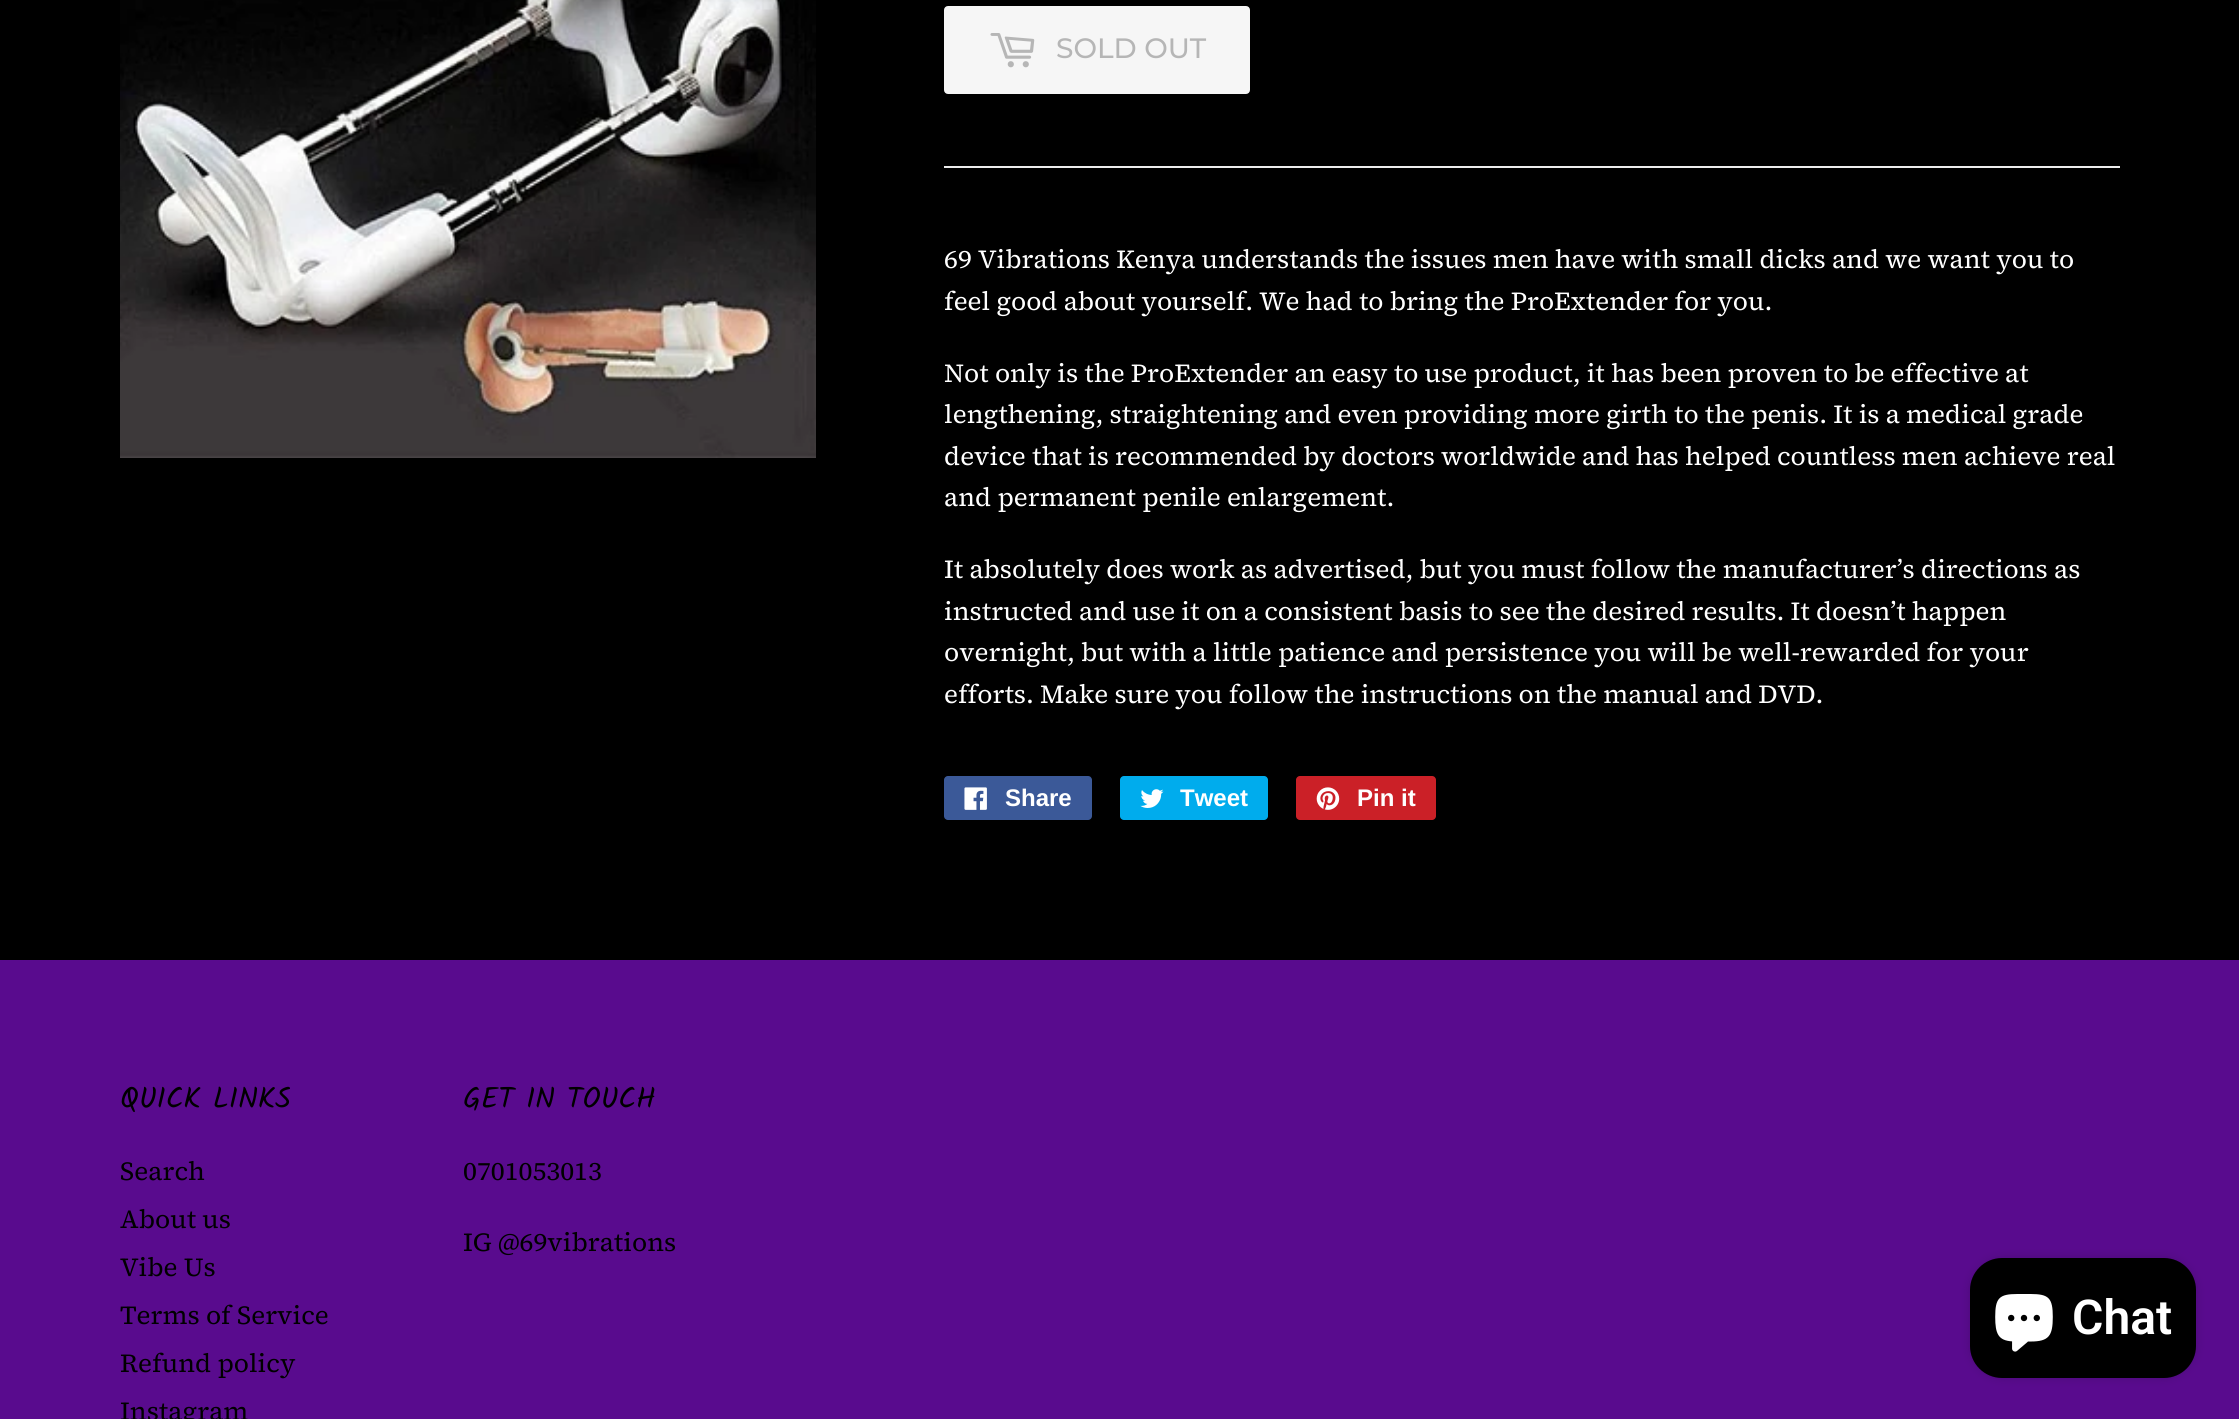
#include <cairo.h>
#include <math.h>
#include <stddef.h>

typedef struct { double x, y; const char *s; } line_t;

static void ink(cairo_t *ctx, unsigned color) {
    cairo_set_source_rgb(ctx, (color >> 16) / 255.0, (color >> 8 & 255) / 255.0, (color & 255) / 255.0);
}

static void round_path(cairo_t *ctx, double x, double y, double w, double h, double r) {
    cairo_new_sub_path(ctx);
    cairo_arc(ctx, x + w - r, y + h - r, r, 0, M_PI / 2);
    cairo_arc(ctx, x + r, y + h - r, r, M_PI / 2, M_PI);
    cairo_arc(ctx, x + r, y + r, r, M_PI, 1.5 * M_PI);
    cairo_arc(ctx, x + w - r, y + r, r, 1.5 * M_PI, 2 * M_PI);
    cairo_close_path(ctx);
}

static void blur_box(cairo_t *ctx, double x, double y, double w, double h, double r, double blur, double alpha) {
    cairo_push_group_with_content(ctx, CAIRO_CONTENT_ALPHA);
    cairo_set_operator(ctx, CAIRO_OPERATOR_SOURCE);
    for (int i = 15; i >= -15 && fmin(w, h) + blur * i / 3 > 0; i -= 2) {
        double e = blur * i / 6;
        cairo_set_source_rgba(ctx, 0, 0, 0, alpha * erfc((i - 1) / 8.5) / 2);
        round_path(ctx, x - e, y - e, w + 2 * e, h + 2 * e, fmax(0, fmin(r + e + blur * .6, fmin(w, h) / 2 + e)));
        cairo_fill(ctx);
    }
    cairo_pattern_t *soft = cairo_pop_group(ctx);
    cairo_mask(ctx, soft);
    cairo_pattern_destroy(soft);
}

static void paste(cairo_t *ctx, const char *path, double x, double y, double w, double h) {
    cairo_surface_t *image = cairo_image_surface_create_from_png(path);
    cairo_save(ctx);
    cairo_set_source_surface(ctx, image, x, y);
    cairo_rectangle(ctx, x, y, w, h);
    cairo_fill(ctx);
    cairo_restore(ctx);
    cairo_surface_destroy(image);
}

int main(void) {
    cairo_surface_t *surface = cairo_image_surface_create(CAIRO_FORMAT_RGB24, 2239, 1419);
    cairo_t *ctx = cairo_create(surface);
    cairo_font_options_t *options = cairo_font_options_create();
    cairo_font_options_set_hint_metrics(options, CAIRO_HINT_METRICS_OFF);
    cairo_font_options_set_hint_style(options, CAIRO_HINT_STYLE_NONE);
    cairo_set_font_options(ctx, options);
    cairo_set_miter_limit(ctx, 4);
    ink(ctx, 0x000000);
    cairo_paint(ctx);
    paste(ctx, "media/1.png", 120, 0, 696, 458);
    ink(ctx, 0xF6F6F6);
    round_path(ctx, 946, 8, 302, 84, 2);
    cairo_fill_preserve(ctx);
    cairo_set_line_width(ctx, 4);
    cairo_stroke(ctx);
    paste(ctx, "media/2.png", 990, 33, 45, 35);
    cairo_select_font_face(ctx, "Montserrat Medium", CAIRO_FONT_SLANT_NORMAL, CAIRO_FONT_WEIGHT_NORMAL);
    cairo_set_font_size(ctx, 28);
    ink(ctx, 0xB6B6B6);
    cairo_move_to(ctx, 1056, 58);
    cairo_show_text(ctx, "SOLD OUT");
    ink(ctx, 0xECECEC);
    cairo_rectangle(ctx, 944, 166, 1176, 2);
    cairo_fill(ctx);
    cairo_select_font_face(ctx, "Source Serif 4", CAIRO_FONT_SLANT_NORMAL, CAIRO_FONT_WEIGHT_NORMAL);
    cairo_set_font_size(ctx, 26);
    ink(ctx, 0xFFFFFF);
    {
        static const line_t items[] = {
            {944, 268, "69 Vibrations Kenya understands the issues men have with small dicks and we want you to"},
            {944, 310, "feel good about yourself. We had to bring the ProExtender for you."},
            {944, 382, "Not only is the ProExtender an easy to use product, it has been proven to be effective at"},
            {944, 423, "lengthening, straightening and even providing more girth to the penis. It is a medical grade"},
            {944, 465, "device that is recommended by doctors worldwide and has helped countless men achieve real"},
            {944, 506, "and permanent penile enlargement."},
            {944, 578, "It absolutely does work as advertised, but you must follow the manufacturer’s directions as"},
            {944, 620, "instructed and use it on a consistent basis to see the desired results. It doesn’t happen"},
            {944, 661, "overnight, but with a little patience and persistence you will be well-rewarded for your"},
            {944, 703, "efforts. Make sure you follow the instructions on the manual and DVD."},
        };
        for (size_t i = 0; i < sizeof items / sizeof *items; i++) {
            cairo_move_to(ctx, items[i].x, items[i].y);
            cairo_show_text(ctx, items[i].s);
        }
    }
    ink(ctx, 0x3B5998);
    round_path(ctx, 944, 776, 148, 44, 4);
    cairo_fill(ctx);
    paste(ctx, "media/3.png", 964, 787, 23, 23);
    cairo_select_font_face(ctx, "Liberation Sans", CAIRO_FONT_SLANT_NORMAL, CAIRO_FONT_WEIGHT_BOLD);
    cairo_set_font_size(ctx, 24);
    ink(ctx, 0xFFFFFF);
    cairo_move_to(ctx, 1005, 806);
    cairo_show_text(ctx, "Share");
    ink(ctx, 0x00ACED);
    round_path(ctx, 1120, 776, 148, 44, 4);
    cairo_fill(ctx);
    paste(ctx, "media/4.png", 1140, 789, 24, 19);
    ink(ctx, 0xFFFFFF);
    cairo_move_to(ctx, 1180, 806);
    cairo_show_text(ctx, "Tweet");
    ink(ctx, 0xCB2027);
    round_path(ctx, 1296, 776, 140, 44, 4);
    cairo_fill(ctx);
    paste(ctx, "media/5.png", 1316, 787, 24, 23);
    ink(ctx, 0xFFFFFF);
    cairo_move_to(ctx, 1357, 806);
    cairo_show_text(ctx, "Pin it");
    ink(ctx, 0x590B8E);
    cairo_rectangle(ctx, 0, 960, 2239, 459);
    cairo_fill(ctx);
    cairo_select_font_face(ctx, "Kalam", CAIRO_FONT_SLANT_NORMAL, CAIRO_FONT_WEIGHT_NORMAL);
    cairo_set_font_size(ctx, 29.5);
    ink(ctx, 0x000000);
    cairo_move_to(ctx, 120, 1108);
    cairo_show_text(ctx, "QUICK LINKS");
    cairo_select_font_face(ctx, "Source Serif 4", CAIRO_FONT_SLANT_NORMAL, CAIRO_FONT_WEIGHT_NORMAL);
    cairo_set_font_size(ctx, 26);
    {
        static const line_t items[] = {
            {120, 1180, "Search"},
            {120, 1228, "About us"},
            {120, 1276, "Vibe Us"},
            {120, 1324, "Terms of Service"},
            {120, 1372, "Refund policy"},
            {120, 1420, "Instagram"},
        };
        for (size_t i = 0; i < sizeof items / sizeof *items; i++) {
            cairo_move_to(ctx, items[i].x, items[i].y);
            cairo_show_text(ctx, items[i].s);
        }
    }
    cairo_select_font_face(ctx, "Kalam", CAIRO_FONT_SLANT_NORMAL, CAIRO_FONT_WEIGHT_NORMAL);
    cairo_set_font_size(ctx, 29.5);
    cairo_move_to(ctx, 463, 1108);
    cairo_show_text(ctx, "GET IN TOUCH");
    cairo_select_font_face(ctx, "Source Serif 4", CAIRO_FONT_SLANT_NORMAL, CAIRO_FONT_WEIGHT_NORMAL);
    cairo_set_font_size(ctx, 26);
    cairo_move_to(ctx, 463, 1180);
    cairo_show_text(ctx, "0701053013");
    cairo_move_to(ctx, 463, 1251);
    cairo_show_text(ctx, "IG @69vibrations");
    ink(ctx, 0x000000);
    blur_box(ctx, 1970, 1258, 226, 120, 32, 5, 0.15);
    ink(ctx, 0x000000);
    round_path(ctx, 1970, 1258, 226, 120, 32);
    cairo_fill(ctx);
    paste(ctx, "media/6.png", 1995, 1294, 58, 58);
    cairo_select_font_face(ctx, "Roboto SemiBold", CAIRO_FONT_SLANT_NORMAL, CAIRO_FONT_WEIGHT_NORMAL);
    cairo_set_font_size(ctx, 48);
    ink(ctx, 0xFFFFFF);
    cairo_move_to(ctx, 2072, 1334);
    cairo_show_text(ctx, "Chat");
    cairo_surface_write_to_png(surface, "image.png");
    cairo_font_options_destroy(options);
    cairo_destroy(ctx);
    cairo_surface_destroy(surface);
    return 0;
}
